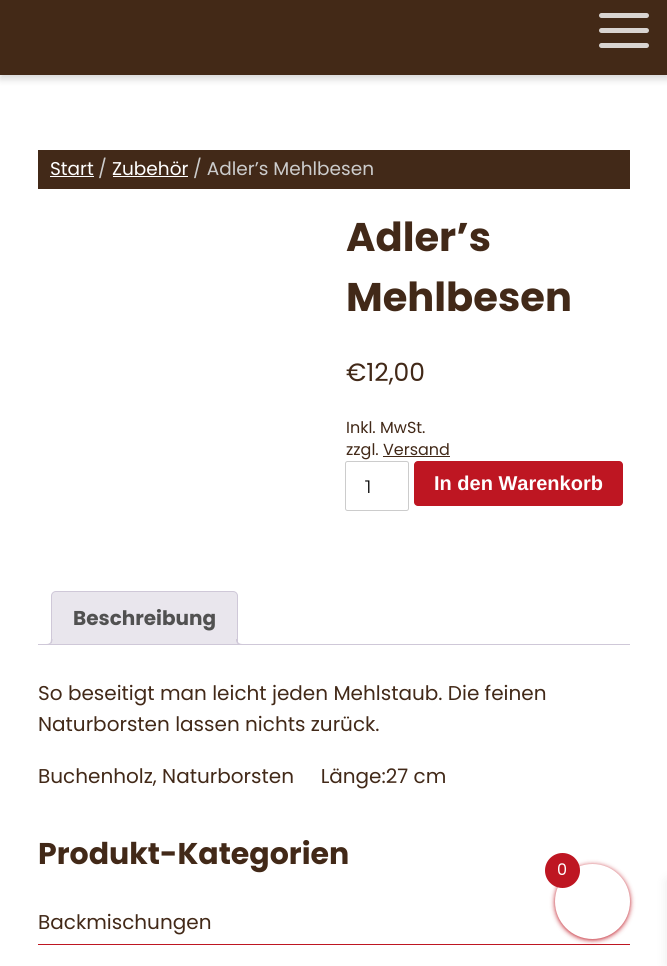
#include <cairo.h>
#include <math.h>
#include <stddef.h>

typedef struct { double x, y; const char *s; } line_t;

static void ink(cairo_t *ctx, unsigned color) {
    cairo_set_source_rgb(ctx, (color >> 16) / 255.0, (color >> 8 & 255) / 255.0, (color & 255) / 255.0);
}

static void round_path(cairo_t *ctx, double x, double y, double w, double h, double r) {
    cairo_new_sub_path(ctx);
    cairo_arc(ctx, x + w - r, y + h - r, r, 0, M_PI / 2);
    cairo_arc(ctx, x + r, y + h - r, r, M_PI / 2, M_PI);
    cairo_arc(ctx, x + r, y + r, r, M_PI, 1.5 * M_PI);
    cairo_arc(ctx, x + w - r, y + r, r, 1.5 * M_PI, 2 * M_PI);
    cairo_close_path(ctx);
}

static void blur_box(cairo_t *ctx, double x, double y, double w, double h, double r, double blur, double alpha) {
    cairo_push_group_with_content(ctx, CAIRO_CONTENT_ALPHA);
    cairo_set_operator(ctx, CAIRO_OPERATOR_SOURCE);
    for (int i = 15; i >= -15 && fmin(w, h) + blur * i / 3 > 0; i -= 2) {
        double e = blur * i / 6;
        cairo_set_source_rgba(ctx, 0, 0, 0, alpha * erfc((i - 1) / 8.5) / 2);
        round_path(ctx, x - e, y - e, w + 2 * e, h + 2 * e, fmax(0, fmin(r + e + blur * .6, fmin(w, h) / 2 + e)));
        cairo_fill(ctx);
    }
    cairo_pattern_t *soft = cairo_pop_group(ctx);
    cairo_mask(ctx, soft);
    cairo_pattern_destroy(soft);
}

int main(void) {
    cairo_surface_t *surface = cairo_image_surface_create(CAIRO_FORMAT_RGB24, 667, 966);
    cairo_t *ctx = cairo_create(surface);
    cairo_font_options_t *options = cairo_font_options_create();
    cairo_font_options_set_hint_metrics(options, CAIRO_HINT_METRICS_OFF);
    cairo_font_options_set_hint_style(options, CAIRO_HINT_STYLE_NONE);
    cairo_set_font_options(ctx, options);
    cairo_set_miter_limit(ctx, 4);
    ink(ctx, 0xFFFFFF);
    cairo_paint(ctx);
    ink(ctx, 0x000000);
    blur_box(ctx, 0, 4, 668, 75, 0, 4, 0.16);
    ink(ctx, 0x432917);
    cairo_rectangle(ctx, 0, 0, 667, 75);
    cairo_fill(ctx);
    ink(ctx, 0xD9D4D1);
    round_path(ctx, 599, 13, 50, 5, 2.5);
    cairo_fill(ctx);
    round_path(ctx, 599, 28, 50, 5, 2.5);
    cairo_fill(ctx);
    round_path(ctx, 599, 43, 50, 5, 2.5);
    cairo_fill(ctx);
    ink(ctx, 0x422918);
    cairo_rectangle(ctx, 38, 150, 592, 39);
    cairo_fill(ctx);
    cairo_select_font_face(ctx, "Poppins", CAIRO_FONT_SLANT_NORMAL, CAIRO_FONT_WEIGHT_NORMAL);
    cairo_set_font_size(ctx, 18.5);
    ink(ctx, 0xFFFFFF);
    cairo_move_to(ctx, 50, 175);
    cairo_show_text(ctx, "Start");
    cairo_rectangle(ctx, 50, 176, 44, 1);
    cairo_fill(ctx);
    ink(ctx, 0xCCCCCC);
    cairo_move_to(ctx, 98, 175);
    cairo_show_text(ctx, "/");
    ink(ctx, 0xFFFFFF);
    cairo_move_to(ctx, 112, 175);
    cairo_show_text(ctx, "Zubehör");
    cairo_rectangle(ctx, 113, 176, 75, 1);
    cairo_fill(ctx);
    ink(ctx, 0xCCCCCC);
    cairo_move_to(ctx, 193, 175);
    cairo_show_text(ctx, "/ Adler’s Mehlbesen");
    cairo_select_font_face(ctx, "Poppins", CAIRO_FONT_SLANT_NORMAL, CAIRO_FONT_WEIGHT_BOLD);
    cairo_set_font_size(ctx, 40);
    ink(ctx, 0x422918);
    cairo_move_to(ctx, 346, 251);
    cairo_show_text(ctx, "Adler’s");
    cairo_move_to(ctx, 346, 311);
    cairo_show_text(ctx, "Mehlbesen");
    cairo_select_font_face(ctx, "Poppins", CAIRO_FONT_SLANT_NORMAL, CAIRO_FONT_WEIGHT_NORMAL);
    cairo_set_font_size(ctx, 25);
    cairo_move_to(ctx, 346, 381);
    cairo_show_text(ctx, "€12,00");
    cairo_set_font_size(ctx, 16);
    cairo_move_to(ctx, 346, 433);
    cairo_show_text(ctx, "Inkl. MwSt.");
    cairo_move_to(ctx, 346, 455);
    cairo_show_text(ctx, "zzgl. Versand");
    cairo_rectangle(ctx, 383, 456, 67, 1);
    cairo_fill(ctx);
    round_path(ctx, 345.5, 461.5, 63, 49, 2);
    ink(ctx, 0xCCCCCC);
    cairo_set_line_width(ctx, 1);
    cairo_stroke(ctx);
    cairo_select_font_face(ctx, "Montserrat", CAIRO_FONT_SLANT_NORMAL, CAIRO_FONT_WEIGHT_NORMAL);
    cairo_set_font_size(ctx, 18);
    ink(ctx, 0x000000);
    cairo_move_to(ctx, 365, 493);
    cairo_show_text(ctx, "1");
    ink(ctx, 0xBE1622);
    round_path(ctx, 414, 461, 209, 45, 4);
    cairo_fill(ctx);
    cairo_select_font_face(ctx, "Liberation Sans", CAIRO_FONT_SLANT_NORMAL, CAIRO_FONT_WEIGHT_BOLD);
    cairo_set_font_size(ctx, 20);
    ink(ctx, 0xFFFFFF);
    cairo_move_to(ctx, 434, 490);
    cairo_show_text(ctx, "In den Warenkorb");
    ink(ctx, 0xE9E6ED);
    cairo_new_path(ctx);
    cairo_move_to(ctx, 56, 591.5);
    cairo_line_to(ctx, 233, 591.5);
    cairo_curve_to(ctx, 235.5, 591.5, 237.5, 593.5, 237.5, 596);
    cairo_line_to(ctx, 237.5, 644.5);
    cairo_line_to(ctx, 51.5, 644.5);
    cairo_line_to(ctx, 51.5, 596);
    cairo_curve_to(ctx, 51.5, 593.5, 53.5, 591.5, 56, 591.5);
    cairo_close_path(ctx);
    cairo_fill_preserve(ctx);
    ink(ctx, 0xCFC8D8);
    cairo_stroke(ctx);
    cairo_select_font_face(ctx, "Poppins", CAIRO_FONT_SLANT_NORMAL, CAIRO_FONT_WEIGHT_BOLD);
    ink(ctx, 0x515151);
    cairo_move_to(ctx, 73, 625);
    cairo_show_text(ctx, "Beschreibung");
    cairo_save(ctx);
    cairo_rectangle(ctx, 38, 591, 592, 54);
    cairo_clip(ctx);
    ink(ctx, 0xE9E6ED);
    cairo_new_path(ctx);
    cairo_move_to(ctx, 49, 645);
    cairo_line_to(ctx, 49, 648);
    cairo_curve_to(ctx, 54, 648, 55, 645.5, 55, 641);
    cairo_line_to(ctx, 52.5, 641);
    cairo_curve_to(ctx, 52, 643, 50.5, 644, 49, 645);
    cairo_close_path(ctx);
    cairo_fill(ctx);
    cairo_restore(ctx);
    ink(ctx, 0xCFC8D8);
    cairo_set_fill_rule(ctx, CAIRO_FILL_RULE_EVEN_ODD);
    cairo_new_path(ctx);
    cairo_move_to(ctx, 46, 639);
    cairo_line_to(ctx, 52.5, 639);
    cairo_curve_to(ctx, 52.5, 643, 50.5, 645, 46, 645);
    cairo_close_path(ctx);
    cairo_move_to(ctx, 46, 639);
    cairo_line_to(ctx, 51, 639);
    cairo_curve_to(ctx, 51, 642.5, 50, 644, 46, 644);
    cairo_close_path(ctx);
    cairo_fill(ctx);
    cairo_save(ctx);
    cairo_set_fill_rule(ctx, CAIRO_FILL_RULE_WINDING);
    cairo_rectangle(ctx, 38, 591, 592, 54);
    cairo_clip(ctx);
    ink(ctx, 0xE9E6ED);
    cairo_new_path(ctx);
    cairo_move_to(ctx, 234, 641);
    cairo_curve_to(ctx, 234, 645.5, 235, 648, 240, 648);
    cairo_line_to(ctx, 240, 645);
    cairo_curve_to(ctx, 238, 644.5, 236.5, 643, 236.5, 641);
    cairo_close_path(ctx);
    cairo_fill(ctx);
    cairo_restore(ctx);
    cairo_new_path(ctx);
    cairo_move_to(ctx, 236, 639);
    cairo_line_to(ctx, 242.5, 639);
    cairo_line_to(ctx, 242.5, 645);
    cairo_curve_to(ctx, 239.5, 645, 236, 643.5, 236, 640);
    cairo_close_path(ctx);
    cairo_move_to(ctx, 237.5, 639);
    cairo_line_to(ctx, 242.5, 639);
    cairo_line_to(ctx, 242.5, 644);
    cairo_curve_to(ctx, 240, 644, 237.5, 643, 237.5, 640);
    cairo_close_path(ctx);
    cairo_fill(ctx);
    cairo_rectangle(ctx, 38, 644, 592, 1);
    cairo_fill(ctx);
    cairo_select_font_face(ctx, "Poppins", CAIRO_FONT_SLANT_NORMAL, CAIRO_FONT_WEIGHT_NORMAL);
    ink(ctx, 0x422918);
    {
        static const line_t items[] = {
            {38, 700, "So beseitigt man leicht jeden Mehlstaub. Die feinen"},
            {38, 731, "Naturborsten lassen nichts zurück."},
            {38, 783, "Buchenholz, Naturborsten     Länge:27 cm"},
        };
        for (size_t i = 0; i < sizeof items / sizeof *items; i++) {
            cairo_move_to(ctx, items[i].x, items[i].y);
            cairo_show_text(ctx, items[i].s);
        }
    }
    cairo_select_font_face(ctx, "Poppins", CAIRO_FONT_SLANT_NORMAL, CAIRO_FONT_WEIGHT_BOLD);
    cairo_set_font_size(ctx, 30);
    cairo_move_to(ctx, 38, 864);
    cairo_show_text(ctx, "Produkt-Kategorien");
    ink(ctx, 0xBE1622);
    cairo_rectangle(ctx, 38, 944, 592, 1);
    cairo_fill(ctx);
    cairo_select_font_face(ctx, "Poppins", CAIRO_FONT_SLANT_NORMAL, CAIRO_FONT_WEIGHT_NORMAL);
    cairo_set_font_size(ctx, 20);
    ink(ctx, 0x422918);
    cairo_move_to(ctx, 38, 929);
    cairo_show_text(ctx, "Backmischungen");
    ink(ctx, 0xBE1622);
    blur_box(ctx, 555, 865, 75, 75, 37.5, 2.5, 1);
    ink(ctx, 0xFFFFFF);
    cairo_arc(ctx, 592.5, 901.5, 37.5, 0, 2 * M_PI);
    cairo_fill(ctx);
    ink(ctx, 0xBE1622);
    cairo_arc(ctx, 562.5, 870.5, 17.5, 0, 2 * M_PI);
    cairo_fill(ctx);
    cairo_set_font_size(ctx, 16);
    ink(ctx, 0xFFFFFF);
    cairo_move_to(ctx, 557, 875);
    cairo_show_text(ctx, "0");
    ink(ctx, 0x000000);
    blur_box(ctx, 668, 881, 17, 84, 0, 6, 0.1);
    cairo_surface_write_to_png(surface, "image.png");
    cairo_font_options_destroy(options);
    cairo_destroy(ctx);
    cairo_surface_destroy(surface);
    return 0;
}
